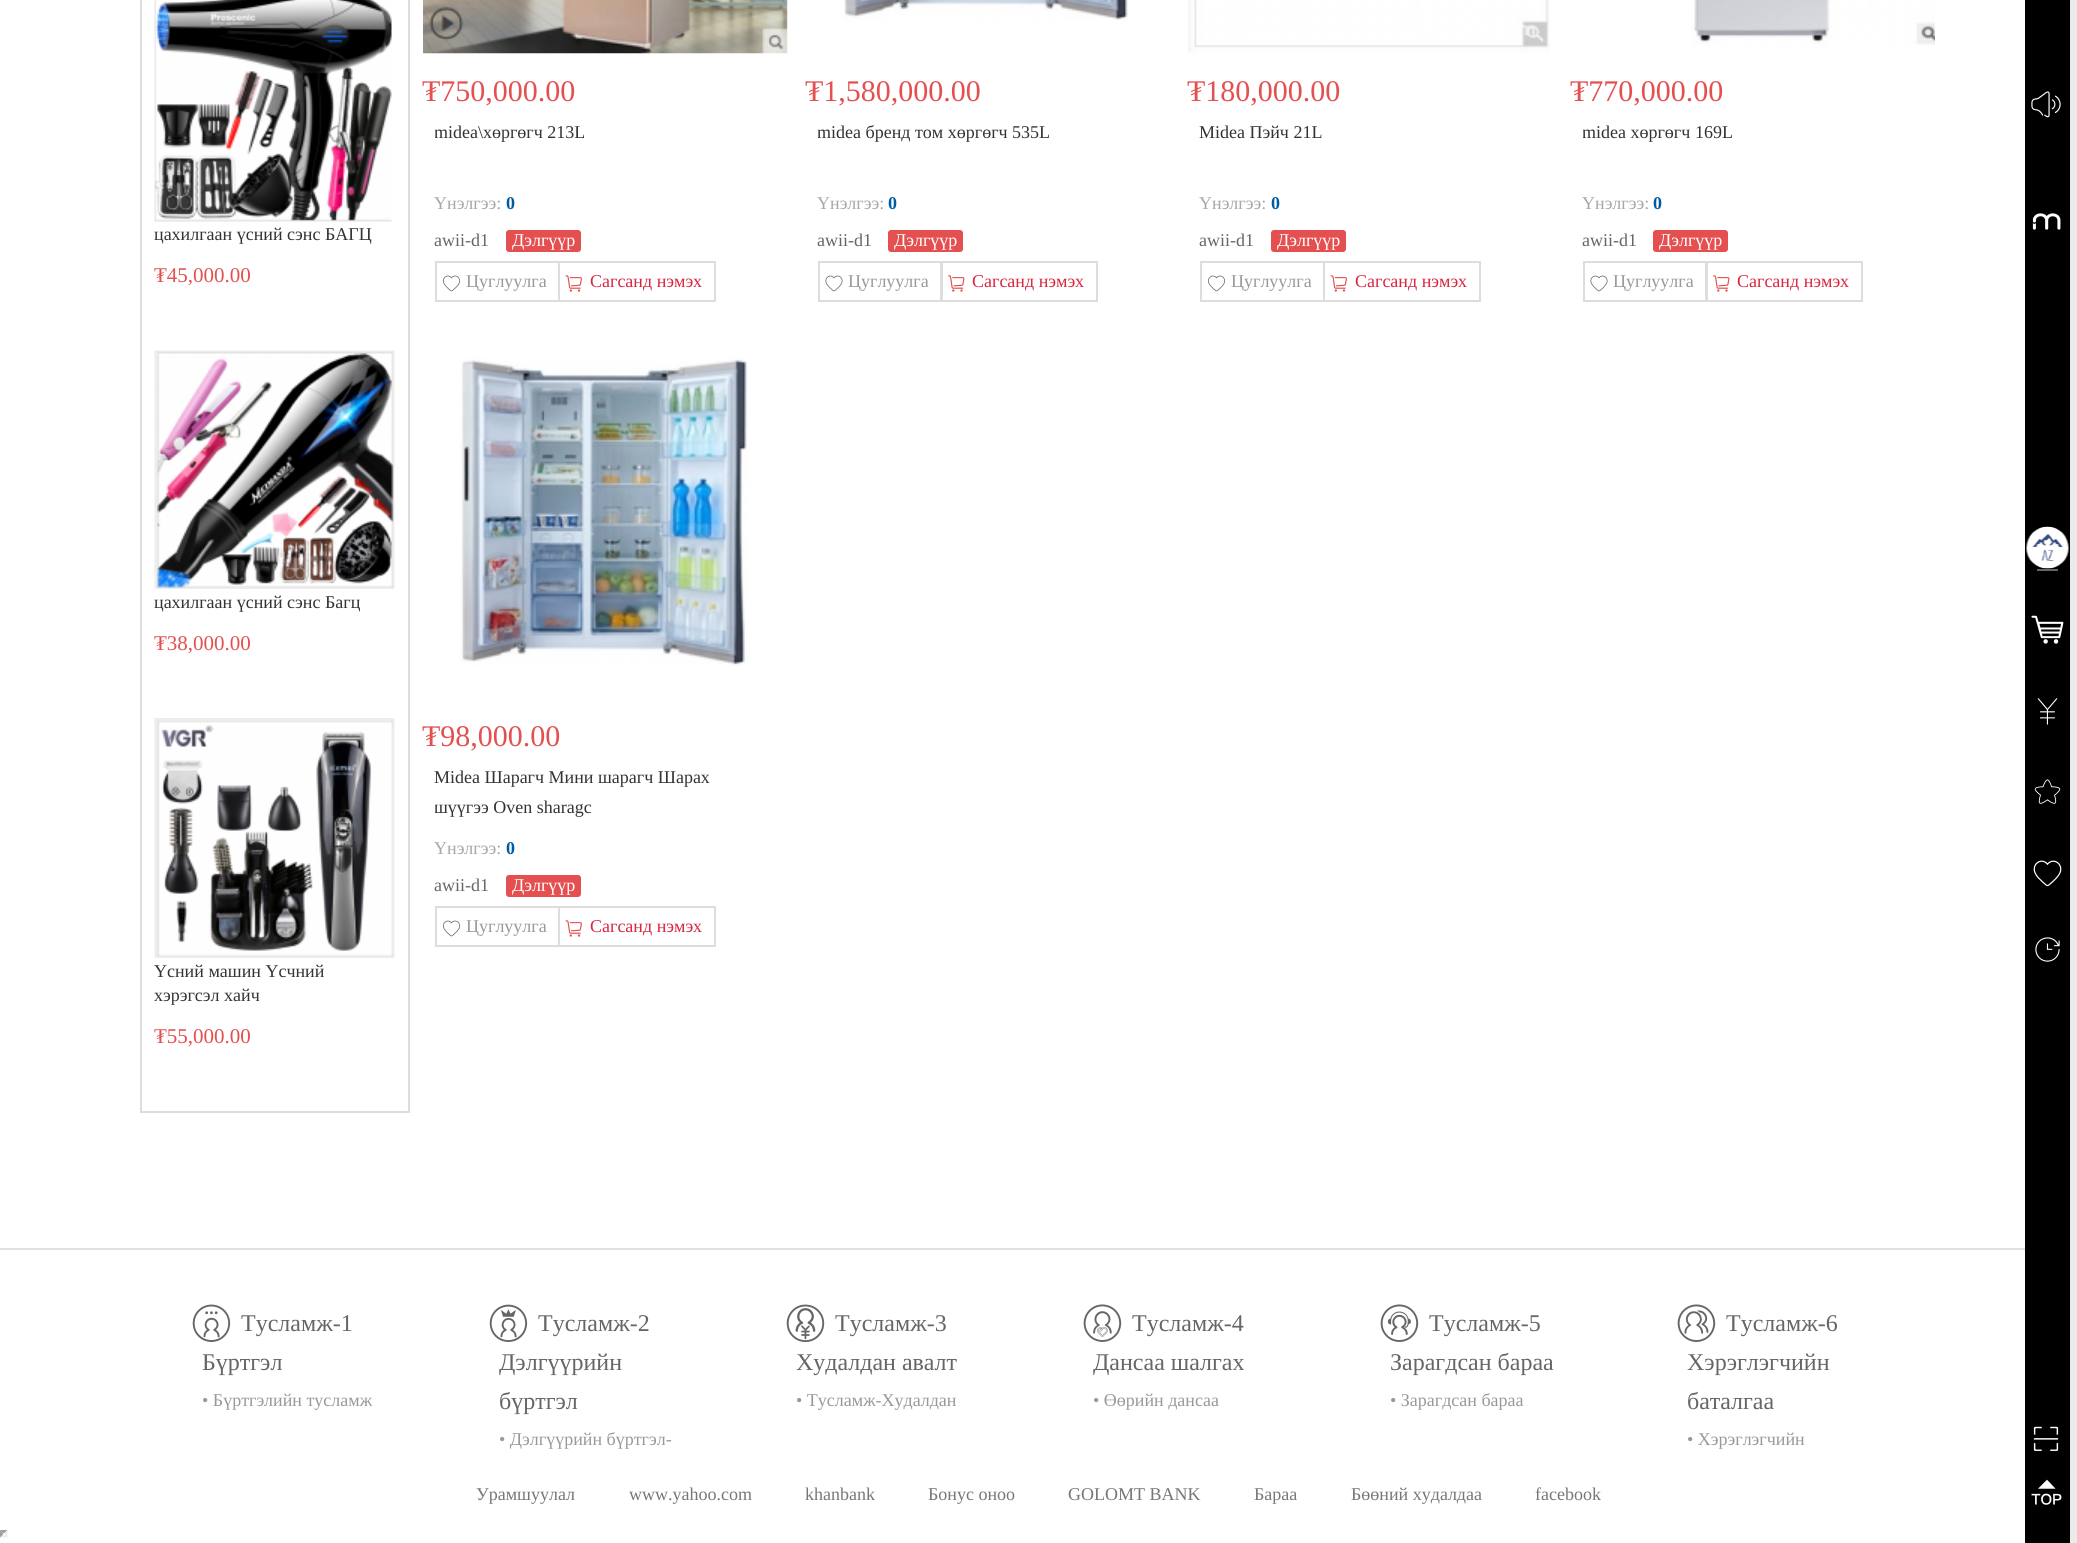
#include <cairo.h>
#include <math.h>
#include <stddef.h>

typedef struct { double x, y; const char *s; } line_t;

static void ink(cairo_t *ctx, unsigned color) {
    cairo_set_source_rgb(ctx, (color >> 16) / 255.0, (color >> 8 & 255) / 255.0, (color & 255) / 255.0);
}

static void round_path(cairo_t *ctx, double x, double y, double w, double h, double r) {
    cairo_new_sub_path(ctx);
    cairo_arc(ctx, x + w - r, y + h - r, r, 0, M_PI / 2);
    cairo_arc(ctx, x + r, y + h - r, r, M_PI / 2, M_PI);
    cairo_arc(ctx, x + r, y + r, r, M_PI, 1.5 * M_PI);
    cairo_arc(ctx, x + w - r, y + r, r, 1.5 * M_PI, 2 * M_PI);
    cairo_close_path(ctx);
}

static void paste(cairo_t *ctx, const char *path, double x, double y, double w, double h) {
    cairo_surface_t *image = cairo_image_surface_create_from_png(path);
    cairo_save(ctx);
    cairo_set_source_surface(ctx, image, x, y);
    cairo_rectangle(ctx, x, y, w, h);
    cairo_fill(ctx);
    cairo_restore(ctx);
    cairo_surface_destroy(image);
}

int main(void) {
    cairo_surface_t *surface = cairo_image_surface_create(CAIRO_FORMAT_RGB24, 2077, 1543);
    cairo_t *ctx = cairo_create(surface);
    cairo_font_options_t *options = cairo_font_options_create();
    cairo_font_options_set_hint_metrics(options, CAIRO_HINT_METRICS_OFF);
    cairo_font_options_set_hint_style(options, CAIRO_HINT_STYLE_NONE);
    cairo_set_font_options(ctx, options);
    cairo_set_miter_limit(ctx, 4);
    ink(ctx, 0xFFFFFF);
    cairo_paint(ctx);
    cairo_rectangle(ctx, 141, -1, 268, 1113);
    ink(ctx, 0xDDDDDD);
    cairo_stroke(ctx);
    paste(ctx, "media/1.png", 154, 0, 238, 222);
    cairo_select_font_face(ctx, "Liberation Serif", CAIRO_FONT_SLANT_NORMAL, CAIRO_FONT_WEIGHT_NORMAL);
    cairo_set_font_size(ctx, 18);
    ink(ctx, 0x333333);
    cairo_move_to(ctx, 154, 240);
    cairo_show_text(ctx, "цахилгаан үсний сэнс БАГЦ");
    cairo_set_font_size(ctx, 21);
    ink(ctx, 0xE45050);
    cairo_move_to(ctx, 154, 282);
    cairo_show_text(ctx, "₮45,000.00");
    paste(ctx, "media/2.png", 154, 350, 241, 239);
    cairo_set_font_size(ctx, 18);
    ink(ctx, 0x333333);
    cairo_move_to(ctx, 154, 608);
    cairo_show_text(ctx, "цахилгаан үсний сэнс Багц");
    cairo_set_font_size(ctx, 21);
    ink(ctx, 0xE45050);
    cairo_move_to(ctx, 154, 650);
    cairo_show_text(ctx, "₮38,000.00");
    paste(ctx, "media/3.png", 154, 718, 241, 240);
    cairo_set_font_size(ctx, 18);
    ink(ctx, 0x333333);
    cairo_move_to(ctx, 154, 977);
    cairo_show_text(ctx, "Үсний машин Үсчний");
    cairo_move_to(ctx, 154, 1001);
    cairo_show_text(ctx, "хэрэгсэл хайч");
    cairo_set_font_size(ctx, 21);
    ink(ctx, 0xE45050);
    cairo_move_to(ctx, 154, 1043);
    cairo_show_text(ctx, "₮55,000.00");
    paste(ctx, "media/4.png", 423, 0, 365, 54);
    cairo_set_font_size(ctx, 30);
    cairo_move_to(ctx, 422, 101);
    cairo_show_text(ctx, "₮750,000.00");
    cairo_save(ctx);
    cairo_rectangle(ctx, 435, 117, 330, 57);
    cairo_clip(ctx);
    cairo_set_font_size(ctx, 18);
    ink(ctx, 0x333333);
    cairo_move_to(ctx, 434, 138);
    cairo_show_text(ctx, "midea\\хөргөгч 213L");
    cairo_restore(ctx);
    cairo_set_font_size(ctx, 18);
    ink(ctx, 0xA7A7A7);
    cairo_move_to(ctx, 434, 209);
    cairo_show_text(ctx, "Үнэлгээ:");
    cairo_select_font_face(ctx, "Liberation Serif", CAIRO_FONT_SLANT_NORMAL, CAIRO_FONT_WEIGHT_BOLD);
    ink(ctx, 0x005AA0);
    cairo_move_to(ctx, 506, 209);
    cairo_show_text(ctx, "0");
    cairo_select_font_face(ctx, "Liberation Serif", CAIRO_FONT_SLANT_NORMAL, CAIRO_FONT_WEIGHT_NORMAL);
    ink(ctx, 0x666666);
    cairo_move_to(ctx, 434, 246);
    cairo_show_text(ctx, "awii-d1");
    ink(ctx, 0xE45050);
    round_path(ctx, 506, 230, 75, 22, 3);
    cairo_fill(ctx);
    ink(ctx, 0xFFFFFF);
    cairo_move_to(ctx, 512, 246);
    cairo_show_text(ctx, "Дэлгүүр");
    cairo_rectangle(ctx, 436, 262, 123, 39);
    ink(ctx, 0xDDDDDD);
    cairo_stroke(ctx);
    paste(ctx, "media/5.png", 443, 275, 17, 17);
    ink(ctx, 0x999999);
    cairo_move_to(ctx, 466, 287);
    cairo_show_text(ctx, "Цуглуулга");
    cairo_rectangle(ctx, 559, 262, 156, 39);
    ink(ctx, 0xDDDDDD);
    cairo_stroke(ctx);
    paste(ctx, "media/6.png", 565, 275, 17, 17);
    ink(ctx, 0xD92540);
    cairo_move_to(ctx, 590, 287);
    cairo_show_text(ctx, "Сагсанд нэмэх");
    paste(ctx, "media/7.png", 843, 0, 286, 21);
    cairo_set_font_size(ctx, 30);
    ink(ctx, 0xE45050);
    cairo_move_to(ctx, 805, 101);
    cairo_show_text(ctx, "₮1,580,000.00");
    cairo_save(ctx);
    cairo_rectangle(ctx, 818, 117, 330, 57);
    cairo_clip(ctx);
    cairo_set_font_size(ctx, 18);
    ink(ctx, 0x333333);
    cairo_move_to(ctx, 817, 138);
    cairo_show_text(ctx, "midea бренд");
    cairo_restore(ctx);
    cairo_set_font_size(ctx, 18);
    ink(ctx, 0x333333);
    cairo_move_to(ctx, 915, 138);
    cairo_show_text(ctx, "том хөргөгч 535L");
    ink(ctx, 0xA7A7A7);
    cairo_move_to(ctx, 817, 209);
    cairo_show_text(ctx, "Үнэлгээ:");
    cairo_select_font_face(ctx, "Liberation Serif", CAIRO_FONT_SLANT_NORMAL, CAIRO_FONT_WEIGHT_BOLD);
    ink(ctx, 0x005AA0);
    cairo_move_to(ctx, 888, 209);
    cairo_show_text(ctx, "0");
    cairo_select_font_face(ctx, "Liberation Serif", CAIRO_FONT_SLANT_NORMAL, CAIRO_FONT_WEIGHT_NORMAL);
    ink(ctx, 0x666666);
    cairo_move_to(ctx, 817, 246);
    cairo_show_text(ctx, "awii-d1");
    ink(ctx, 0xE45050);
    round_path(ctx, 888, 230, 75, 22, 3);
    cairo_fill(ctx);
    ink(ctx, 0xFFFFFF);
    cairo_move_to(ctx, 894, 246);
    cairo_show_text(ctx, "Дэлгүүр");
    cairo_rectangle(ctx, 819, 262, 122, 39);
    ink(ctx, 0xDDDDDD);
    cairo_stroke(ctx);
    paste(ctx, "media/8.png", 825, 275, 18, 17);
    ink(ctx, 0x999999);
    cairo_move_to(ctx, 848, 287);
    cairo_show_text(ctx, "Цуглуулга");
    cairo_rectangle(ctx, 942, 262, 155, 39);
    ink(ctx, 0xDDDDDD);
    cairo_stroke(ctx);
    paste(ctx, "media/9.png", 948, 275, 17, 17);
    ink(ctx, 0xD92540);
    cairo_move_to(ctx, 972, 287);
    cairo_show_text(ctx, "Сагсанд нэмэх");
    paste(ctx, "media/10.png", 1188, 0, 362, 53);
    cairo_set_font_size(ctx, 30);
    ink(ctx, 0xE45050);
    cairo_move_to(ctx, 1187, 101);
    cairo_show_text(ctx, "₮180,000.00");
    cairo_set_font_size(ctx, 18);
    ink(ctx, 0x333333);
    cairo_move_to(ctx, 1199, 138);
    cairo_show_text(ctx, "Midea Пэйч 21L");
    ink(ctx, 0xA7A7A7);
    cairo_move_to(ctx, 1199, 209);
    cairo_show_text(ctx, "Үнэлгээ:");
    cairo_select_font_face(ctx, "Liberation Serif", CAIRO_FONT_SLANT_NORMAL, CAIRO_FONT_WEIGHT_BOLD);
    ink(ctx, 0x005AA0);
    cairo_move_to(ctx, 1271, 209);
    cairo_show_text(ctx, "0");
    cairo_select_font_face(ctx, "Liberation Serif", CAIRO_FONT_SLANT_NORMAL, CAIRO_FONT_WEIGHT_NORMAL);
    ink(ctx, 0x666666);
    cairo_move_to(ctx, 1199, 246);
    cairo_show_text(ctx, "awii-d1");
    ink(ctx, 0xE45050);
    round_path(ctx, 1271, 230, 75, 22, 3);
    cairo_fill(ctx);
    ink(ctx, 0xFFFFFF);
    cairo_move_to(ctx, 1277, 246);
    cairo_show_text(ctx, "Дэлгүүр");
    cairo_rectangle(ctx, 1201, 262, 123, 39);
    ink(ctx, 0xDDDDDD);
    cairo_stroke(ctx);
    paste(ctx, "media/5.png", 1208, 275, 17, 17);
    ink(ctx, 0x999999);
    cairo_move_to(ctx, 1231, 287);
    cairo_show_text(ctx, "Цуглуулга");
    cairo_rectangle(ctx, 1324, 262, 156, 39);
    ink(ctx, 0xDDDDDD);
    cairo_stroke(ctx);
    paste(ctx, "media/6.png", 1330, 275, 17, 17);
    ink(ctx, 0xD92540);
    cairo_move_to(ctx, 1355, 287);
    cairo_show_text(ctx, "Сагсанд нэмэх");
    paste(ctx, "media/11.png", 1691, 0, 244, 45);
    cairo_set_font_size(ctx, 30);
    ink(ctx, 0xE45050);
    cairo_move_to(ctx, 1570, 101);
    cairo_show_text(ctx, "₮770,000.00");
    cairo_save(ctx);
    cairo_rectangle(ctx, 1583, 117, 330, 57);
    cairo_clip(ctx);
    cairo_set_font_size(ctx, 18);
    ink(ctx, 0x333333);
    cairo_move_to(ctx, 1582, 138);
    cairo_show_text(ctx, "midea хөргөгч");
    cairo_restore(ctx);
    cairo_set_font_size(ctx, 18);
    ink(ctx, 0x333333);
    cairo_move_to(ctx, 1695, 138);
    cairo_show_text(ctx, "169L");
    ink(ctx, 0xA7A7A7);
    cairo_move_to(ctx, 1582, 209);
    cairo_show_text(ctx, "Үнэлгээ:");
    cairo_select_font_face(ctx, "Liberation Serif", CAIRO_FONT_SLANT_NORMAL, CAIRO_FONT_WEIGHT_BOLD);
    ink(ctx, 0x005AA0);
    cairo_move_to(ctx, 1653, 209);
    cairo_show_text(ctx, "0");
    cairo_select_font_face(ctx, "Liberation Serif", CAIRO_FONT_SLANT_NORMAL, CAIRO_FONT_WEIGHT_NORMAL);
    ink(ctx, 0x666666);
    cairo_move_to(ctx, 1582, 246);
    cairo_show_text(ctx, "awii-d1");
    ink(ctx, 0xE45050);
    round_path(ctx, 1653, 230, 75, 22, 3);
    cairo_fill(ctx);
    ink(ctx, 0xFFFFFF);
    cairo_move_to(ctx, 1659, 246);
    cairo_show_text(ctx, "Дэлгүүр");
    cairo_rectangle(ctx, 1584, 262, 122, 39);
    ink(ctx, 0xDDDDDD);
    cairo_stroke(ctx);
    paste(ctx, "media/8.png", 1590, 275, 18, 17);
    ink(ctx, 0x999999);
    cairo_move_to(ctx, 1613, 287);
    cairo_show_text(ctx, "Цуглуулга");
    cairo_rectangle(ctx, 1707, 262, 155, 39);
    ink(ctx, 0xDDDDDD);
    cairo_stroke(ctx);
    paste(ctx, "media/9.png", 1713, 275, 17, 17);
    ink(ctx, 0xD92540);
    cairo_move_to(ctx, 1737, 287);
    cairo_show_text(ctx, "Сагсанд нэмэх");
    paste(ctx, "media/12.png", 460, 358, 288, 308);
    cairo_set_font_size(ctx, 30);
    ink(ctx, 0xE45050);
    cairo_move_to(ctx, 422, 746);
    cairo_show_text(ctx, "₮98,000.00");
    cairo_set_font_size(ctx, 18);
    ink(ctx, 0x333333);
    cairo_move_to(ctx, 434, 783);
    cairo_show_text(ctx, "Midea Шарагч Мини шарагч Шарах");
    cairo_save(ctx);
    cairo_rectangle(ctx, 435, 762, 330, 57);
    cairo_clip(ctx);
    cairo_move_to(ctx, 434, 813);
    cairo_show_text(ctx, "шүүгээ Оven sharagc");
    cairo_restore(ctx);
    ink(ctx, 0xA7A7A7);
    cairo_move_to(ctx, 434, 854);
    cairo_show_text(ctx, "Үнэлгээ:");
    cairo_select_font_face(ctx, "Liberation Serif", CAIRO_FONT_SLANT_NORMAL, CAIRO_FONT_WEIGHT_BOLD);
    ink(ctx, 0x005AA0);
    cairo_move_to(ctx, 506, 854);
    cairo_show_text(ctx, "0");
    cairo_select_font_face(ctx, "Liberation Serif", CAIRO_FONT_SLANT_NORMAL, CAIRO_FONT_WEIGHT_NORMAL);
    ink(ctx, 0x666666);
    cairo_move_to(ctx, 434, 891);
    cairo_show_text(ctx, "awii-d1");
    ink(ctx, 0xE45050);
    round_path(ctx, 506, 875, 75, 22, 3);
    cairo_fill(ctx);
    ink(ctx, 0xFFFFFF);
    cairo_move_to(ctx, 512, 891);
    cairo_show_text(ctx, "Дэлгүүр");
    cairo_rectangle(ctx, 436, 907, 123, 39);
    ink(ctx, 0xDDDDDD);
    cairo_stroke(ctx);
    paste(ctx, "media/5.png", 443, 920, 17, 17);
    ink(ctx, 0x999999);
    cairo_move_to(ctx, 466, 932);
    cairo_show_text(ctx, "Цуглуулга");
    cairo_rectangle(ctx, 559, 907, 156, 39);
    ink(ctx, 0xDDDDDD);
    cairo_stroke(ctx);
    paste(ctx, "media/6.png", 565, 920, 17, 17);
    ink(ctx, 0xD92540);
    cairo_move_to(ctx, 590, 932);
    cairo_show_text(ctx, "Сагсанд нэмэх");
    ink(ctx, 0x000000);
    cairo_rectangle(ctx, 2025, 0, 45, 1543);
    cairo_fill(ctx);
    paste(ctx, "media/13.png", 2031, 91, 30, 27);
    ink(ctx, 0xECEAEA);
    cairo_rectangle(ctx, 2070, 0, 7, 1543);
    cairo_fill(ctx);
    paste(ctx, "media/14.png", 2032, 213, 29, 17);
    paste(ctx, "media/15.png", 2026, 526, 43, 43);
    ink(ctx, 0x666666);
    cairo_rectangle(ctx, 2037, 569, 21, 2);
    cairo_fill(ctx);
    paste(ctx, "media/16.png", 2031, 615, 33, 29);
    paste(ctx, "media/17.png", 2037, 698, 21, 27);
    paste(ctx, "media/18.png", 2034, 779, 27, 25);
    paste(ctx, "media/19.png", 2033, 860, 29, 27);
    paste(ctx, "media/20.png", 2035, 937, 25, 25);
    paste(ctx, "media/21.png", 2033, 1426, 26, 25);
    paste(ctx, "media/22.png", 2031, 1479, 31, 26);
    ink(ctx, 0xE1E1E1);
    cairo_rectangle(ctx, 0, 1248, 2025, 2);
    cairo_fill(ctx);
    paste(ctx, "media/23.png", 192, 1304, 39, 38);
    cairo_set_font_size(ctx, 24);
    ink(ctx, 0x666666);
    cairo_move_to(ctx, 241, 1331);
    cairo_show_text(ctx, "Тусламж-1");
    cairo_move_to(ctx, 202, 1370);
    cairo_show_text(ctx, "Бүртгэл");
    cairo_set_font_size(ctx, 18);
    ink(ctx, 0x999999);
    cairo_move_to(ctx, 202, 1406);
    cairo_show_text(ctx, "• Бүртгэлийн тусламж");
    paste(ctx, "media/24.png", 489, 1304, 39, 38);
    cairo_set_font_size(ctx, 24);
    ink(ctx, 0x666666);
    {
        static const line_t items[] = {
            {538, 1331, "Тусламж-2"},
            {499, 1370, "Дэлгүүрийн"},
            {499, 1409, "бүртгэл"},
        };
        for (size_t i = 0; i < sizeof items / sizeof *items; i++) {
            cairo_move_to(ctx, items[i].x, items[i].y);
            cairo_show_text(ctx, items[i].s);
        }
    }
    cairo_set_font_size(ctx, 18);
    ink(ctx, 0x999999);
    cairo_move_to(ctx, 499, 1445);
    cairo_show_text(ctx, "• Дэлгүүрийн бүртгэл-");
    paste(ctx, "media/25.png", 786, 1304, 39, 39);
    cairo_set_font_size(ctx, 24);
    ink(ctx, 0x666666);
    cairo_move_to(ctx, 835, 1331);
    cairo_show_text(ctx, "Тусламж-3");
    cairo_move_to(ctx, 796, 1370);
    cairo_show_text(ctx, "Худалдан авалт");
    cairo_set_font_size(ctx, 18);
    ink(ctx, 0x999999);
    cairo_move_to(ctx, 796, 1406);
    cairo_show_text(ctx, "• Тусламж-Худалдан");
    paste(ctx, "media/26.png", 1083, 1304, 39, 38);
    cairo_set_font_size(ctx, 24);
    ink(ctx, 0x666666);
    cairo_move_to(ctx, 1132, 1331);
    cairo_show_text(ctx, "Тусламж-4");
    cairo_move_to(ctx, 1093, 1370);
    cairo_show_text(ctx, "Дансаа шалгах");
    cairo_set_font_size(ctx, 18);
    ink(ctx, 0x999999);
    cairo_move_to(ctx, 1093, 1406);
    cairo_show_text(ctx, "• Өөрийн дансаа");
    paste(ctx, "media/27.png", 1380, 1304, 39, 38);
    cairo_set_font_size(ctx, 24);
    ink(ctx, 0x666666);
    cairo_move_to(ctx, 1429, 1331);
    cairo_show_text(ctx, "Тусламж-5");
    cairo_move_to(ctx, 1390, 1370);
    cairo_show_text(ctx, "Зарагдсан бараа");
    cairo_set_font_size(ctx, 18);
    ink(ctx, 0x999999);
    cairo_move_to(ctx, 1390, 1406);
    cairo_show_text(ctx, "• Зарагдсан бараа");
    paste(ctx, "media/28.png", 1677, 1304, 39, 38);
    cairo_set_font_size(ctx, 24);
    ink(ctx, 0x666666);
    {
        static const line_t items[] = {
            {1726, 1331, "Тусламж-6"},
            {1687, 1370, "Хэрэглэгчийн"},
            {1687, 1409, "баталгаа"},
        };
        for (size_t i = 0; i < sizeof items / sizeof *items; i++) {
            cairo_move_to(ctx, items[i].x, items[i].y);
            cairo_show_text(ctx, items[i].s);
        }
    }
    cairo_set_font_size(ctx, 18);
    ink(ctx, 0x999999);
    cairo_move_to(ctx, 1687, 1445);
    cairo_show_text(ctx, "• Хэрэглэгчийн");
    ink(ctx, 0x777777);
    {
        static const line_t items[] = {
            {476, 1500, "Урамшуулал"},
            {629, 1500, "www.yahoo.com"},
            {805, 1500, "khanbank"},
            {928, 1500, "Бонус оноо"},
            {1068, 1500, "GOLOMT BANK"},
            {1254, 1500, "Бараа"},
            {1351, 1500, "Бөөний худалдаа"},
            {1535, 1500, "facebook"},
        };
        for (size_t i = 0; i < sizeof items / sizeof *items; i++) {
            cairo_move_to(ctx, items[i].x, items[i].y);
            cairo_show_text(ctx, items[i].s);
        }
    }
    ink(ctx, 0x9F9F9F);
    cairo_new_path(ctx);
    cairo_move_to(ctx, 0, 1530);
    cairo_line_to(ctx, 7.5, 1530);
    cairo_line_to(ctx, 4.5, 1533);
    cairo_line_to(ctx, 3, 1533);
    cairo_close_path(ctx);
    cairo_fill(ctx);
    ink(ctx, 0xEEEEEE);
    cairo_new_path(ctx);
    cairo_move_to(ctx, 7.5, 1530);
    cairo_line_to(ctx, 7.5, 1537.5);
    cairo_line_to(ctx, 4.5, 1534.5);
    cairo_line_to(ctx, 4.5, 1533);
    cairo_close_path(ctx);
    cairo_fill(ctx);
    cairo_new_path(ctx);
    cairo_move_to(ctx, 7.5, 1537.5);
    cairo_line_to(ctx, 0, 1537.5);
    cairo_line_to(ctx, 3, 1534.5);
    cairo_line_to(ctx, 4.5, 1534.5);
    cairo_close_path(ctx);
    cairo_fill(ctx);
    ink(ctx, 0x9F9F9F);
    cairo_new_path(ctx);
    cairo_move_to(ctx, 0, 1537.5);
    cairo_line_to(ctx, 0, 1530);
    cairo_line_to(ctx, 3, 1533);
    cairo_line_to(ctx, 3, 1534.5);
    cairo_close_path(ctx);
    cairo_fill(ctx);
    cairo_surface_write_to_png(surface, "image.png");
    cairo_font_options_destroy(options);
    cairo_destroy(ctx);
    cairo_surface_destroy(surface);
    return 0;
}
